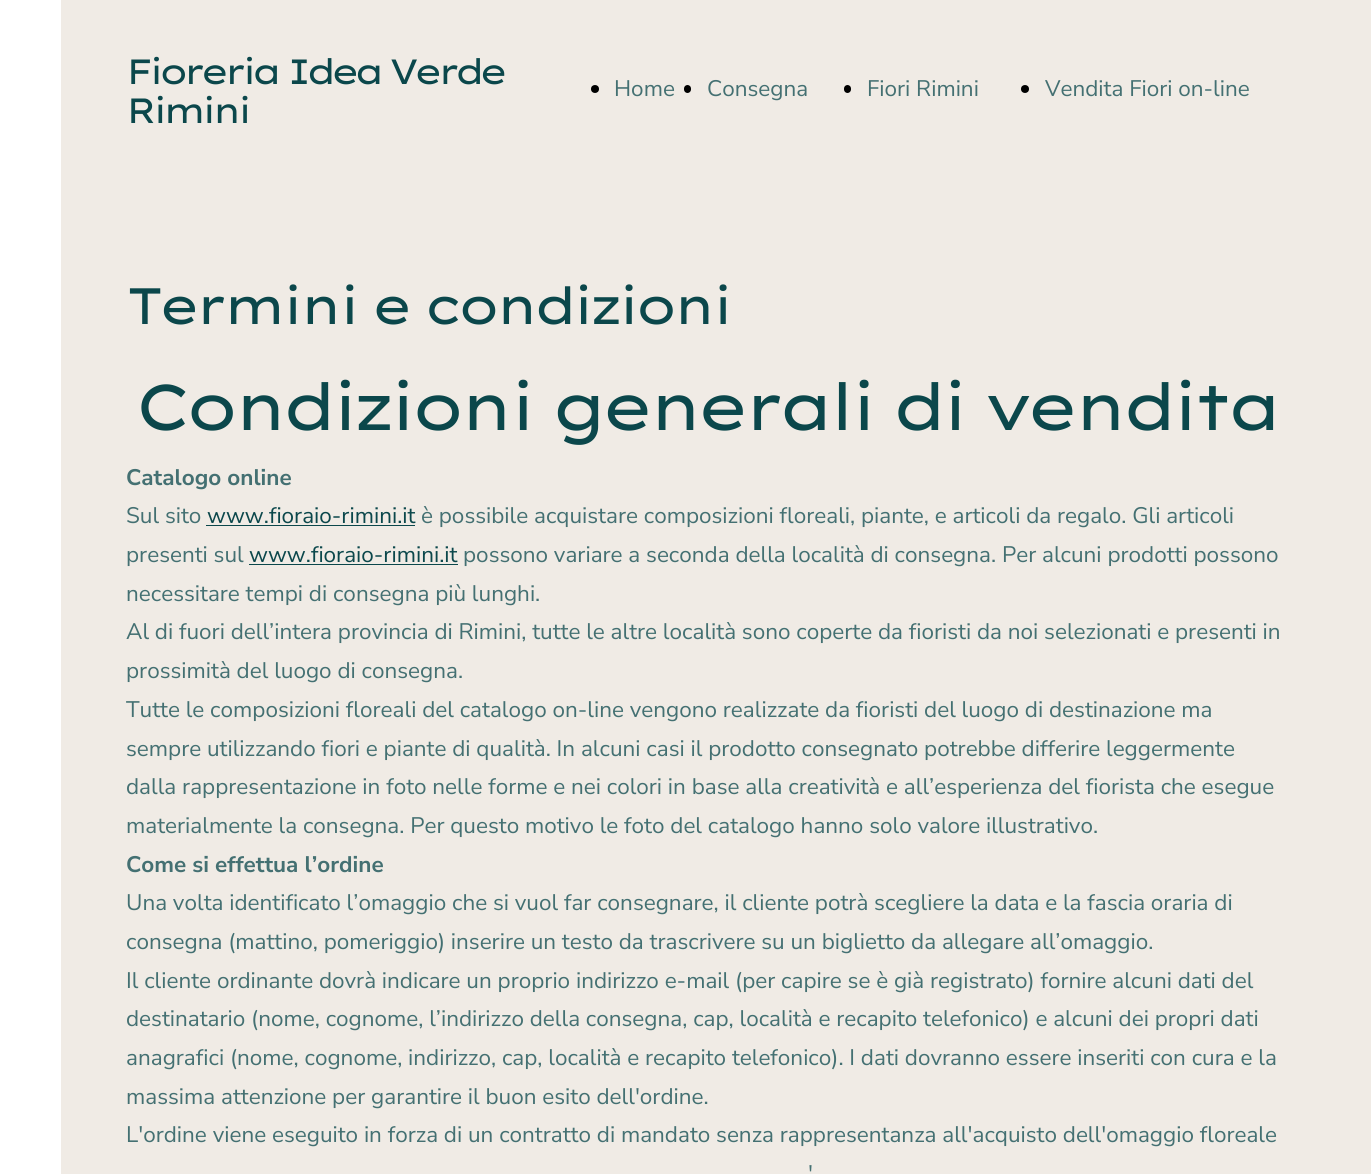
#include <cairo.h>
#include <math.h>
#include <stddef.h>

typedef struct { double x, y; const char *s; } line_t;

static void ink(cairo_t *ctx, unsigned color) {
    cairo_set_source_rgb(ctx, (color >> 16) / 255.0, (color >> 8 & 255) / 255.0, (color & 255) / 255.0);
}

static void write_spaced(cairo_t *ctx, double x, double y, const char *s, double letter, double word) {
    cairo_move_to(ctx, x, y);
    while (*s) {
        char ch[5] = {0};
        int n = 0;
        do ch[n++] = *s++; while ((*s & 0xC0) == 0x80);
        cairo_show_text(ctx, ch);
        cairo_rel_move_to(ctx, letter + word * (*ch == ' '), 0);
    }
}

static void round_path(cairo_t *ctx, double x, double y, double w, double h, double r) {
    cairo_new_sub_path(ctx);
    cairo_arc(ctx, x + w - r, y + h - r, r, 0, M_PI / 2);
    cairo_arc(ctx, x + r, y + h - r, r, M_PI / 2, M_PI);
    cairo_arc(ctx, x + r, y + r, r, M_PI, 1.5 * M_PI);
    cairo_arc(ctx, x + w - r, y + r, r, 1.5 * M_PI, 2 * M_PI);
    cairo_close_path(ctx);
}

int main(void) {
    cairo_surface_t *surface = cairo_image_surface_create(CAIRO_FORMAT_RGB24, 1371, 1174);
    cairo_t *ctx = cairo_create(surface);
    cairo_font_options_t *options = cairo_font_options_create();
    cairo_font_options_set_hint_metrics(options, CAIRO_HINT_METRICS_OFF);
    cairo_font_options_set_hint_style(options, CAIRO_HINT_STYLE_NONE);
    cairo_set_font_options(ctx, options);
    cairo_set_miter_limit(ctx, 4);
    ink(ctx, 0xFFFFFF);
    cairo_paint(ctx);
    ink(ctx, 0xF0EBE5);
    cairo_rectangle(ctx, 61, 0, 1310, 1174);
    cairo_fill(ctx);
    cairo_select_font_face(ctx, "Lexend Mega", CAIRO_FONT_SLANT_NORMAL, CAIRO_FONT_WEIGHT_NORMAL);
    cairo_set_font_size(ctx, 35);
    ink(ctx, 0x0B474B);
    write_spaced(ctx, 126, 84, "Fioreria Idea Verde", -5, 0);
    write_spaced(ctx, 126, 123, "Rimini", -5, 0);
    ink(ctx, 0x000000);
    cairo_new_path(ctx);
    cairo_arc(ctx, 595, 89, 4, 0, 2 * M_PI);
    cairo_fill(ctx);
    cairo_select_font_face(ctx, "Nunito Sans", CAIRO_FONT_SLANT_NORMAL, CAIRO_FONT_WEIGHT_NORMAL);
    cairo_set_font_size(ctx, 22.5);
    ink(ctx, 0x447072);
    cairo_move_to(ctx, 614, 96);
    cairo_show_text(ctx, "Home");
    ink(ctx, 0x000000);
    round_path(ctx, 684, 85, 7, 8, 3.5);
    cairo_fill(ctx);
    ink(ctx, 0x447072);
    cairo_move_to(ctx, 707, 96);
    cairo_show_text(ctx, "Consegna");
    ink(ctx, 0x000000);
    round_path(ctx, 844, 85, 7, 8, 3.5);
    cairo_fill(ctx);
    ink(ctx, 0x447072);
    cairo_move_to(ctx, 867, 96);
    cairo_show_text(ctx, "Fiori Rimini");
    ink(ctx, 0x000000);
    cairo_new_path(ctx);
    cairo_arc(ctx, 1025, 89, 4, 0, 2 * M_PI);
    cairo_fill(ctx);
    ink(ctx, 0x447072);
    cairo_move_to(ctx, 1045, 96);
    cairo_show_text(ctx, "Vendita Fiori on-line");
    cairo_select_font_face(ctx, "Lexend Mega", CAIRO_FONT_SLANT_NORMAL, CAIRO_FONT_WEIGHT_NORMAL);
    cairo_set_font_size(ctx, 51);
    ink(ctx, 0x0B474B);
    write_spaced(ctx, 126, 324, "Termini e condizioni", -5, 0);
    cairo_set_font_size(ctx, 64.75);
    write_spaced(ctx, 135, 430, "Condizioni generali di vendita", -6.25, 0);
    cairo_select_font_face(ctx, "Nunito Sans", CAIRO_FONT_SLANT_NORMAL, CAIRO_FONT_WEIGHT_BOLD);
    cairo_set_font_size(ctx, 22.5);
    ink(ctx, 0x447072);
    cairo_move_to(ctx, 126, 485);
    cairo_show_text(ctx, "Catalogo online");
    cairo_select_font_face(ctx, "Nunito Sans", CAIRO_FONT_SLANT_NORMAL, CAIRO_FONT_WEIGHT_NORMAL);
    cairo_move_to(ctx, 126, 523);
    cairo_show_text(ctx, "Sul sito");
    ink(ctx, 0x0B474B);
    cairo_move_to(ctx, 207, 523);
    cairo_show_text(ctx, "www.fioraio-rimini.it");
    cairo_rectangle(ctx, 206, 525, 209, 1);
    cairo_fill(ctx);
    ink(ctx, 0x447072);
    cairo_move_to(ctx, 421, 523);
    cairo_show_text(ctx, "è possibile acquistare composizioni floreali, piante, e articoli da regalo. Gli articoli");
    cairo_move_to(ctx, 126, 562);
    cairo_show_text(ctx, "presenti sul");
    ink(ctx, 0x0B474B);
    cairo_move_to(ctx, 249, 562);
    cairo_show_text(ctx, "www.fioraio-rimini.it");
    cairo_rectangle(ctx, 249, 564, 209, 1);
    cairo_fill(ctx);
    ink(ctx, 0x447072);
    {
        static const line_t items[] = {
            {463, 562, "possono variare a seconda della località di consegna. Per alcuni prodotti possono"},
            {126, 601, "necessitare tempi di consegna più lunghi."},
            {126, 639, "Al di fuori dell’intera provincia di Rimini, tutte le altre località sono coperte da fioristi da noi selezionati e presenti in"},
            {126, 678, "prossimità del luogo di consegna."},
            {126, 717, "Tutte le composizioni floreali del catalogo on-line vengono realizzate da fioristi del luogo di destinazione ma"},
            {126, 756, "sempre utilizzando fiori e piante di qualità. In alcuni casi il prodotto consegnato potrebbe differire leggermente"},
            {126, 794, "dalla rappresentazione in foto nelle forme e nei colori in base alla creatività e all’esperienza del fiorista che esegue"},
            {126, 833, "materialmente la consegna. Per questo motivo le foto del catalogo hanno solo valore illustrativo."},
        };
        for (size_t i = 0; i < sizeof items / sizeof *items; i++) {
            cairo_move_to(ctx, items[i].x, items[i].y);
            cairo_show_text(ctx, items[i].s);
        }
    }
    cairo_select_font_face(ctx, "Nunito Sans", CAIRO_FONT_SLANT_NORMAL, CAIRO_FONT_WEIGHT_BOLD);
    cairo_move_to(ctx, 126, 872);
    cairo_show_text(ctx, "Come si effettua l’ordine");
    cairo_select_font_face(ctx, "Nunito Sans", CAIRO_FONT_SLANT_NORMAL, CAIRO_FONT_WEIGHT_NORMAL);
    {
        static const line_t items[] = {
            {126, 910, "Una volta identificato l’omaggio che si vuol far consegnare, il cliente potrà scegliere la data e la fascia oraria di"},
            {126, 949, "consegna (mattino, pomeriggio) inserire un testo da trascrivere su un biglietto da allegare all’omaggio."},
            {126, 988, "Il cliente ordinante dovrà indicare un proprio indirizzo e-mail (per capire se è già registrato) fornire alcuni dati del"},
            {126, 1026, "destinatario (nome, cognome, l’indirizzo della consegna, cap, località e recapito telefonico) e alcuni dei propri dati"},
            {126, 1065, "anagrafici (nome, cognome, indirizzo, cap, località e recapito telefonico). I dati dovranno essere inseriti con cura e la"},
            {126, 1104, "massima attenzione per garantire il buon esito dell'ordine."},
            {126, 1142, "L'ordine viene eseguito in forza di un contratto di mandato senza rappresentanza all'acquisto dell'omaggio floreale"},
            {808, 1181, "'"},
        };
        for (size_t i = 0; i < sizeof items / sizeof *items; i++) {
            cairo_move_to(ctx, items[i].x, items[i].y);
            cairo_show_text(ctx, items[i].s);
        }
    }
    cairo_surface_write_to_png(surface, "image.png");
    cairo_font_options_destroy(options);
    cairo_destroy(ctx);
    cairo_surface_destroy(surface);
    return 0;
}
